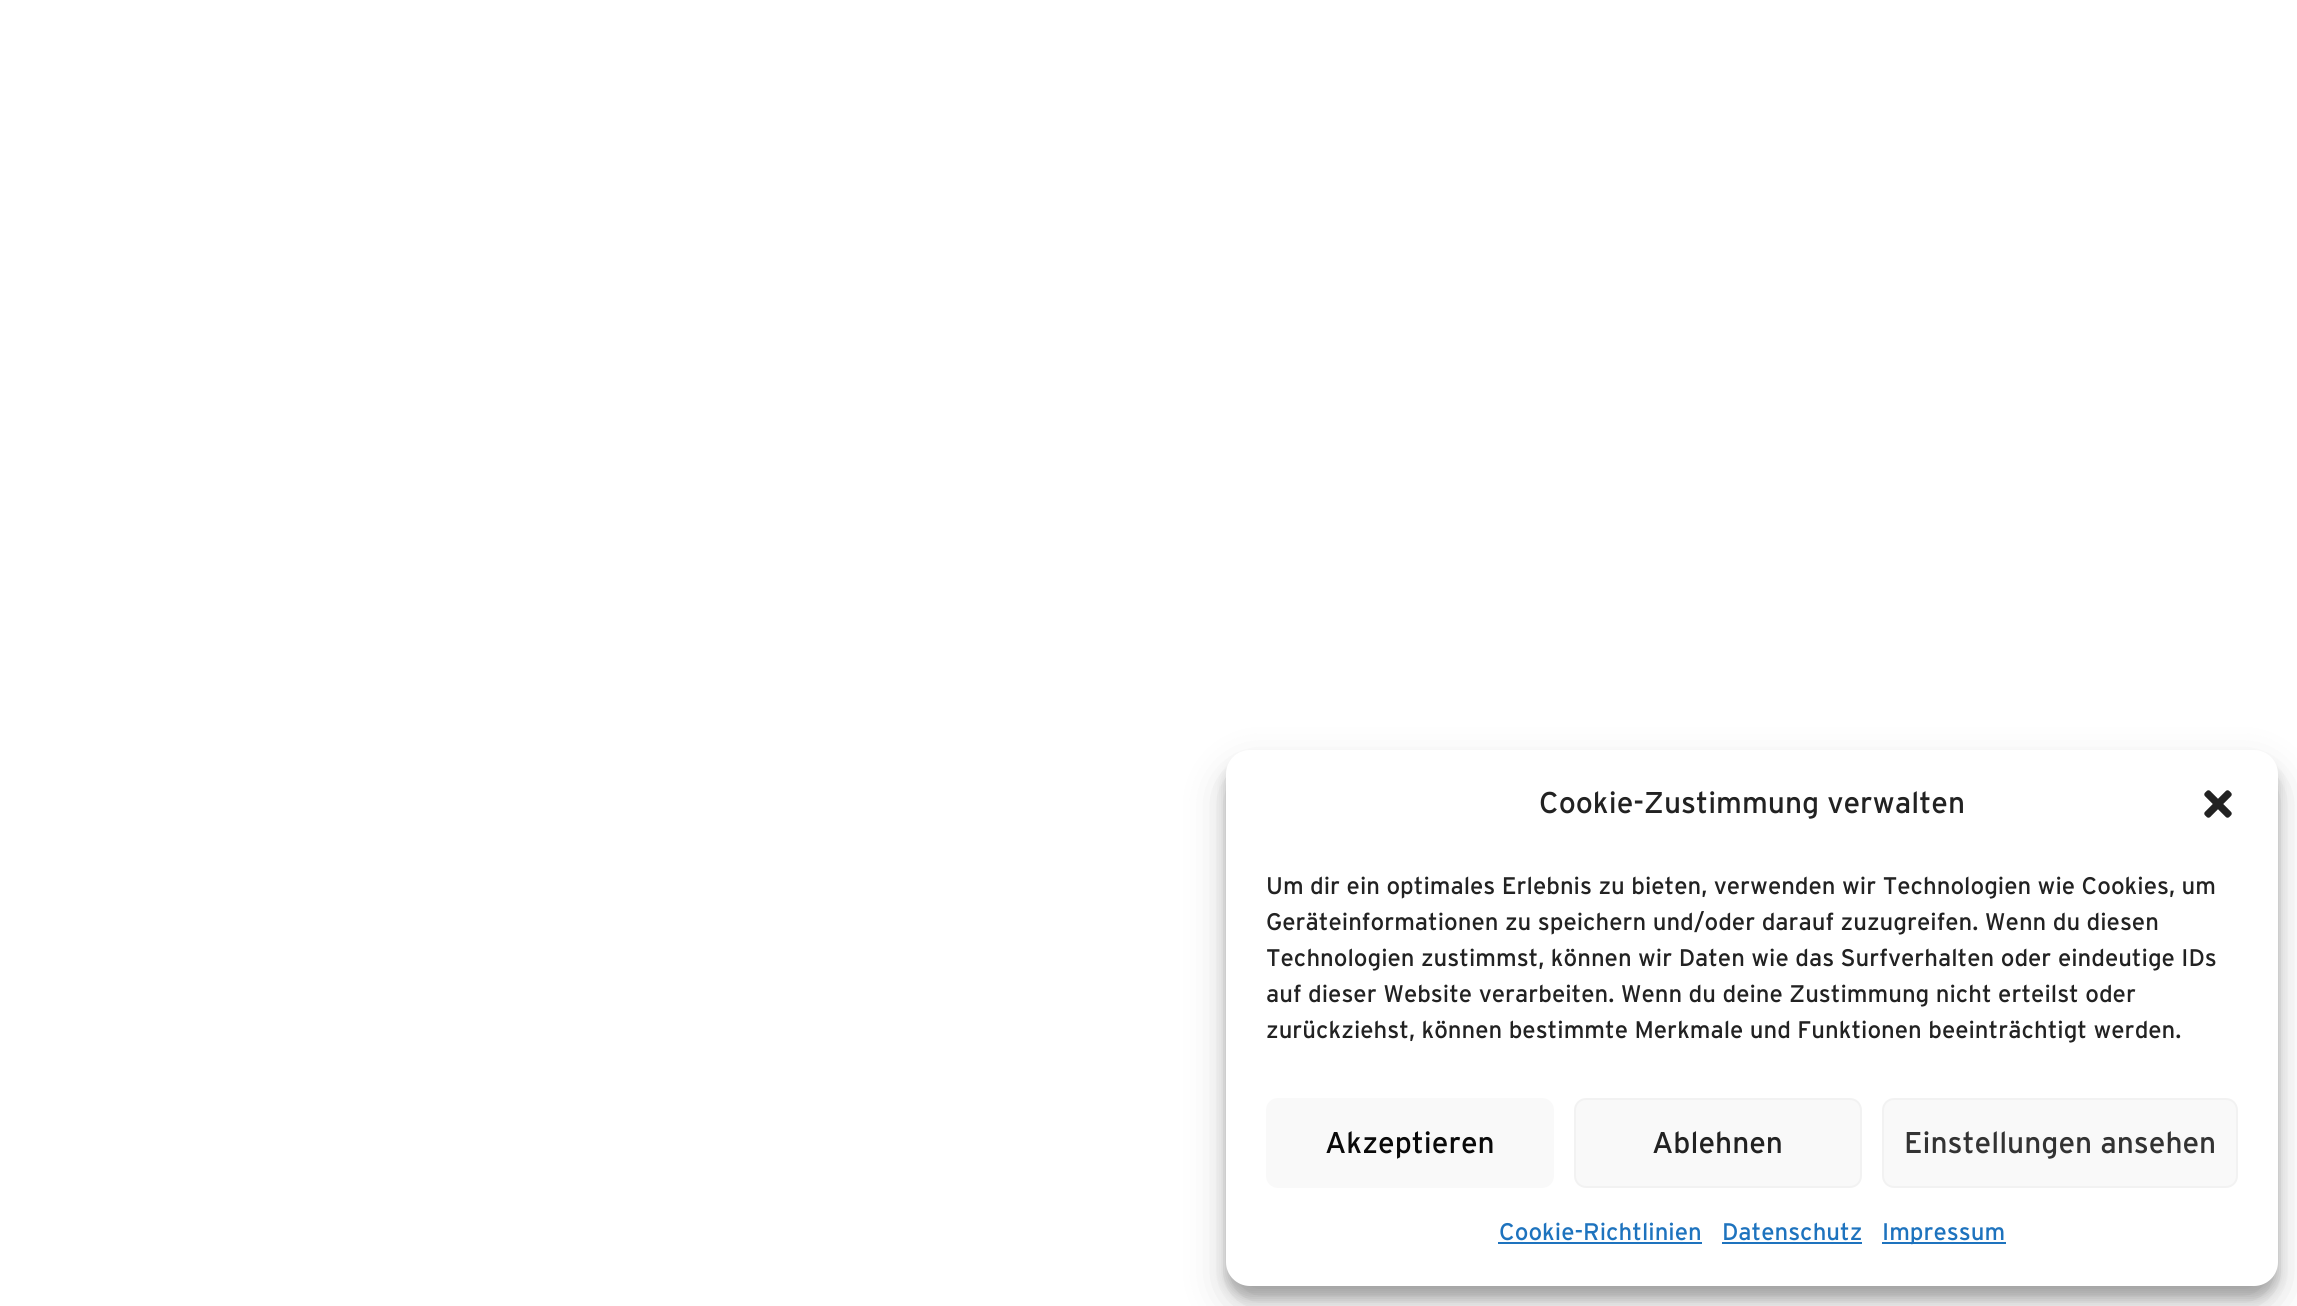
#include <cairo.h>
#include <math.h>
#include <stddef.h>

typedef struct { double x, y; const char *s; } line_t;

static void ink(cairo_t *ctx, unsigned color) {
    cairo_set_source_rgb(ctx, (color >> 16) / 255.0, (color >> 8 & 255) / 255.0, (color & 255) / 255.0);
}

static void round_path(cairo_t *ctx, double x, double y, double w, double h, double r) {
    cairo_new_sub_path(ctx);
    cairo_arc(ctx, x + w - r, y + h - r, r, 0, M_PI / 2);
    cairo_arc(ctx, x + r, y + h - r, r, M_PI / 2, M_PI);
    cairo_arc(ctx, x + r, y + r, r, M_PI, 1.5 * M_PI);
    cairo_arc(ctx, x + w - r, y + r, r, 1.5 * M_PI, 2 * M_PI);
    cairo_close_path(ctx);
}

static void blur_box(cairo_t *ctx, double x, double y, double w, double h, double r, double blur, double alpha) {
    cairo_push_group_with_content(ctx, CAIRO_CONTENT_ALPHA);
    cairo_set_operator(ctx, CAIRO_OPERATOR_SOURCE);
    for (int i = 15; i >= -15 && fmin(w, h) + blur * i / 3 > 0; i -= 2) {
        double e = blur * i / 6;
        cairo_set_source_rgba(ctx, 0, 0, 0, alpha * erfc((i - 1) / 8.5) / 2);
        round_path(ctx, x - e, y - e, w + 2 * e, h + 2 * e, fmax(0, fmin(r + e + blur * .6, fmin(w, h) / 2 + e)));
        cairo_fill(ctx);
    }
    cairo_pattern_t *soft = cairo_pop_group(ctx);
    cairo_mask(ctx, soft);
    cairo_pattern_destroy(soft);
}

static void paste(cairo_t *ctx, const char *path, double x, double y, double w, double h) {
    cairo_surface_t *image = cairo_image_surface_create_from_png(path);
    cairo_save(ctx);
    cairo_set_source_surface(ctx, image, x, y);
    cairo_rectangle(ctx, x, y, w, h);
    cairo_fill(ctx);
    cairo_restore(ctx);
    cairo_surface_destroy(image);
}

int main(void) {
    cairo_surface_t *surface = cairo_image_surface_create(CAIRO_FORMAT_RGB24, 2297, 1306);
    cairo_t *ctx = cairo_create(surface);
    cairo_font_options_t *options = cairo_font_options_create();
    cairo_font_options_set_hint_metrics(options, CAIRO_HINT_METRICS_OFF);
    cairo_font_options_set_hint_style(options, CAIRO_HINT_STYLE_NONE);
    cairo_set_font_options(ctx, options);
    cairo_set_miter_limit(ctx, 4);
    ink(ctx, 0xFFFFFF);
    cairo_paint(ctx);
    ink(ctx, 0x000000);
    blur_box(ctx, 1226, 762, 1052, 536, 24, 6, 0.23);
    blur_box(ctx, 1226, 770, 1052, 536, 24, 20, 0.19);
    ink(ctx, 0xFFFFFF);
    round_path(ctx, 1226, 750, 1052, 536, 24);
    cairo_fill(ctx);
    cairo_select_font_face(ctx, "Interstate", CAIRO_FONT_SLANT_NORMAL, CAIRO_FONT_WEIGHT_NORMAL);
    cairo_set_font_size(ctx, 30);
    ink(ctx, 0x222222);
    cairo_move_to(ctx, 1539, 813);
    cairo_show_text(ctx, "Cookie-Zustimmung verwalten");
    paste(ctx, "media/1.png", 2204, 790, 28, 28);
    cairo_set_font_size(ctx, 24);
    {
        static const line_t items[] = {
            {1266, 894, "Um dir ein optimales Erlebnis zu bieten, verwenden wir Technologien wie Cookies, um"},
            {1266, 930, "Geräteinformationen zu speichern und/oder darauf zuzugreifen. Wenn du diesen"},
            {1266, 966, "Technologien zustimmst, können wir Daten wie das Surfverhalten oder eindeutige IDs"},
            {1266, 1002, "auf dieser Website verarbeiten. Wenn du deine Zustimmung nicht erteilst oder"},
            {1266, 1038, "zurückziehst, können bestimmte Merkmale und Funktionen beeinträchtigt werden."},
        };
        for (size_t i = 0; i < sizeof items / sizeof *items; i++) {
            cairo_move_to(ctx, items[i].x, items[i].y);
            cairo_show_text(ctx, items[i].s);
        }
    }
    ink(ctx, 0xF9F9F9);
    round_path(ctx, 1266, 1098, 288, 90, 12);
    cairo_fill(ctx);
    cairo_set_font_size(ctx, 30);
    ink(ctx, 0x0A0A0A);
    cairo_move_to(ctx, 1325, 1153);
    cairo_show_text(ctx, "Akzeptieren");
    ink(ctx, 0xF9F9F9);
    round_path(ctx, 1575, 1099, 286, 88, 11);
    cairo_fill_preserve(ctx);
    ink(ctx, 0xF2F2F2);
    cairo_stroke(ctx);
    ink(ctx, 0x222222);
    cairo_move_to(ctx, 1652, 1153);
    cairo_show_text(ctx, "Ablehnen");
    ink(ctx, 0xF9F9F9);
    round_path(ctx, 1883, 1099, 354, 88, 11);
    cairo_fill_preserve(ctx);
    ink(ctx, 0xF2F2F2);
    cairo_stroke(ctx);
    ink(ctx, 0x333333);
    cairo_move_to(ctx, 1904, 1153);
    cairo_show_text(ctx, "Einstellungen ansehen");
    cairo_set_font_size(ctx, 24);
    ink(ctx, 0x1E73BE);
    cairo_move_to(ctx, 1499, 1240);
    cairo_show_text(ctx, "Cookie-Richtlinien");
    cairo_rectangle(ctx, 1498, 1242, 204, 2);
    cairo_fill(ctx);
    cairo_move_to(ctx, 1722, 1240);
    cairo_show_text(ctx, "Datenschutz");
    cairo_rectangle(ctx, 1722, 1242, 140, 2);
    cairo_fill(ctx);
    cairo_rectangle(ctx, 1882, 1242, 124, 2);
    cairo_fill(ctx);
    cairo_move_to(ctx, 1882, 1240);
    cairo_show_text(ctx, "Impressum");
    cairo_surface_write_to_png(surface, "image.png");
    cairo_font_options_destroy(options);
    cairo_destroy(ctx);
    cairo_surface_destroy(surface);
    return 0;
}
